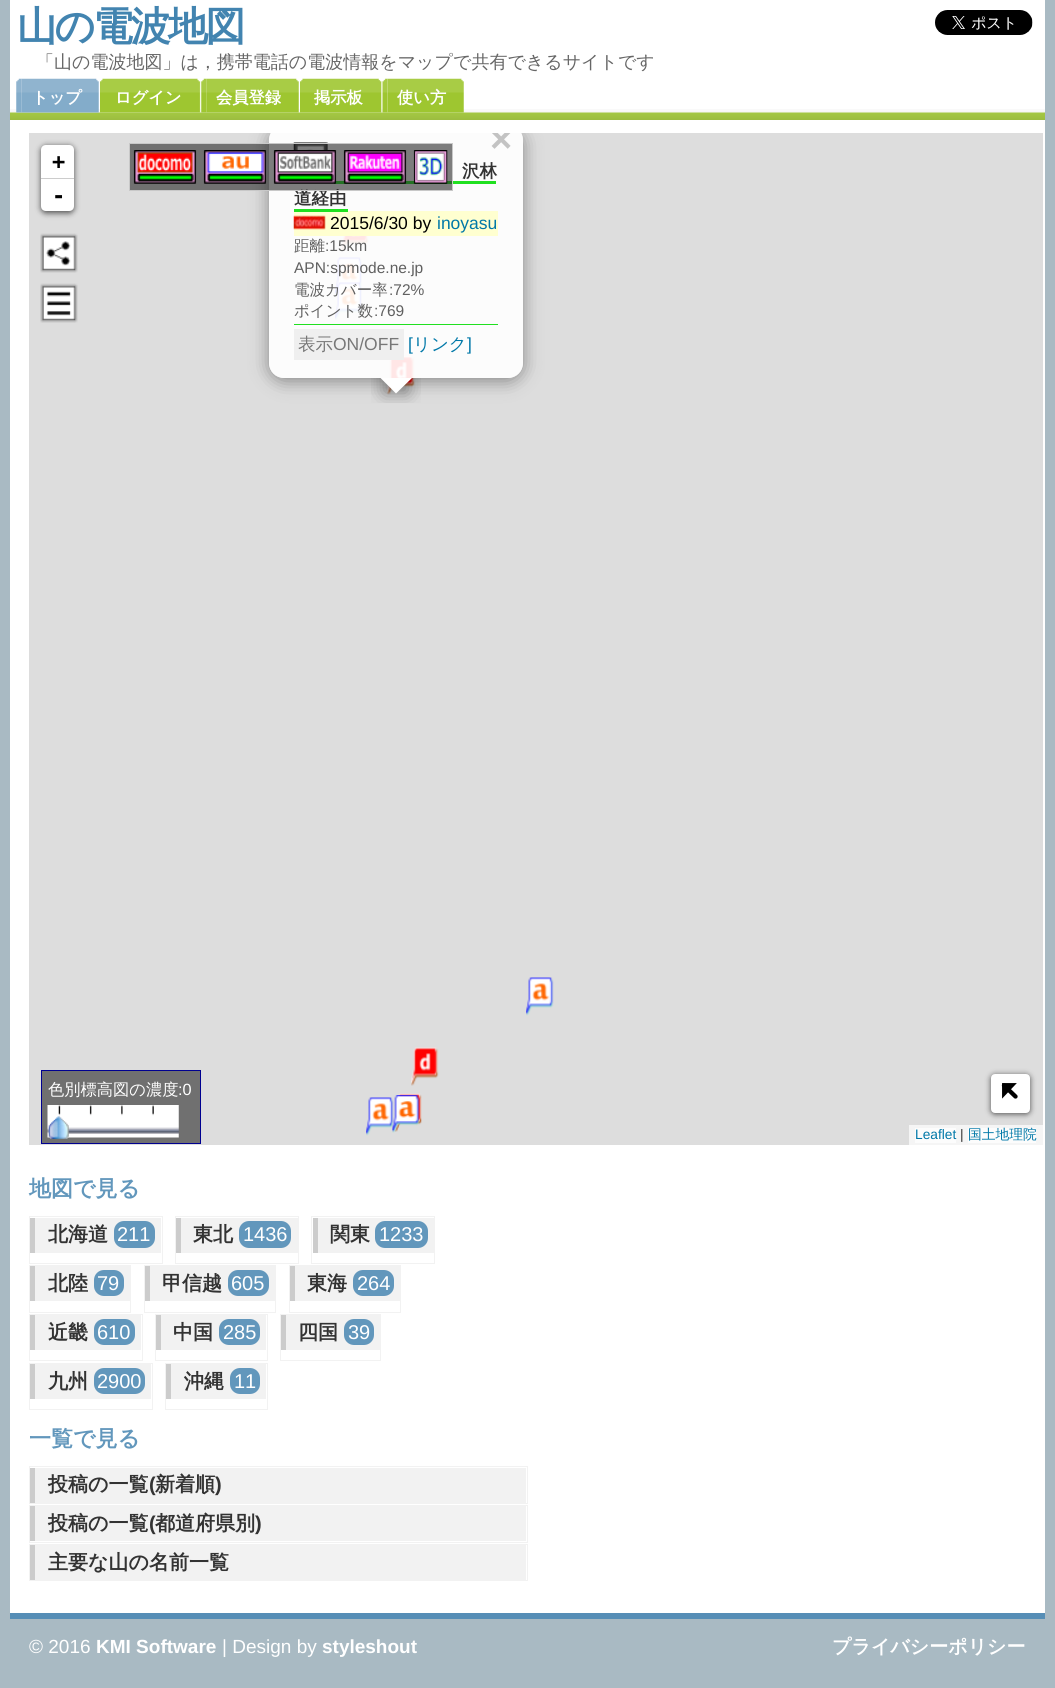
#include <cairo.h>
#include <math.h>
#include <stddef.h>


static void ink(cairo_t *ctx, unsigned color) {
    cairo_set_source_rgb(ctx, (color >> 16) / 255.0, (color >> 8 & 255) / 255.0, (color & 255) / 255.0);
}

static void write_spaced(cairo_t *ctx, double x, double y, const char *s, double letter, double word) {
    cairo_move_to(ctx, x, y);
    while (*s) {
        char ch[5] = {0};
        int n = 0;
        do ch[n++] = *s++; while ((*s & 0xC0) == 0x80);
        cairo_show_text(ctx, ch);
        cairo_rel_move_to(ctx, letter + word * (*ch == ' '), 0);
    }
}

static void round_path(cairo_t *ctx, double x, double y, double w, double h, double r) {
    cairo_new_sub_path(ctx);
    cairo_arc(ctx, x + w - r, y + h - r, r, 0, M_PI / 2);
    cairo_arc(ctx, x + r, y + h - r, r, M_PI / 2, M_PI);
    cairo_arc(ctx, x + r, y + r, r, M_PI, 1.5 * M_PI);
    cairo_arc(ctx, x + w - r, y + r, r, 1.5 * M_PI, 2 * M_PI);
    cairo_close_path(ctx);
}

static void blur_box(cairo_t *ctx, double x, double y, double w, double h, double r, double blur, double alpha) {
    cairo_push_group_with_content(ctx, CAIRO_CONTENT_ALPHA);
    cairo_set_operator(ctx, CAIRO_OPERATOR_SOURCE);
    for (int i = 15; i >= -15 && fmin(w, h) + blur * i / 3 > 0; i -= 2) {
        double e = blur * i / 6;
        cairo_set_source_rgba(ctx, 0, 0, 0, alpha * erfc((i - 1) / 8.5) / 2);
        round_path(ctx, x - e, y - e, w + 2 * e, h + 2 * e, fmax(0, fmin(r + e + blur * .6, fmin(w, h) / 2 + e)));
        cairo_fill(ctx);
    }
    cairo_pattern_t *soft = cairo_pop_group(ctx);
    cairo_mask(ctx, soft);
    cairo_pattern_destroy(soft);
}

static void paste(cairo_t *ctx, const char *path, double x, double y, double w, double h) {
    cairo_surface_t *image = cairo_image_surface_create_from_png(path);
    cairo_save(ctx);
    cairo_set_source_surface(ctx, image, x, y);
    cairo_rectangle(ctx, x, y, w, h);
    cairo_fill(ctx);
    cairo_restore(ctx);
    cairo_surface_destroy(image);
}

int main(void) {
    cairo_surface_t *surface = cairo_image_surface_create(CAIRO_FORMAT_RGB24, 1055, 1688);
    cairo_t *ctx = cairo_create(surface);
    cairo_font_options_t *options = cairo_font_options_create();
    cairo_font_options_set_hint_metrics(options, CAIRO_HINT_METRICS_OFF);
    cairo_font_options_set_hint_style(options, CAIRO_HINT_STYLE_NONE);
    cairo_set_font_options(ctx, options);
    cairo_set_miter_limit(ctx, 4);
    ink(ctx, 0xA9BAC3);
    cairo_paint(ctx);
    ink(ctx, 0xFFFFFF);
    cairo_rectangle(ctx, 10, 0, 1035, 1613);
    cairo_fill(ctx);
    paste(ctx, "media/1.png", 10, 109, 1035, 11);
    cairo_select_font_face(ctx, "WenQuanYi Zen Hei", CAIRO_FONT_SLANT_NORMAL, CAIRO_FONT_WEIGHT_BOLD);
    cairo_set_font_size(ctx, 40);
    ink(ctx, 0x4284B0);
    write_spaced(ctx, 17, 40, "山の電波地図", -2.5, 0);
    paste(ctx, "media/2.png", 935, 10, 98, 25);
    cairo_select_font_face(ctx, "WenQuanYi Zen Hei Medium", CAIRO_FONT_SLANT_NORMAL, CAIRO_FONT_WEIGHT_NORMAL);
    cairo_set_font_size(ctx, 18);
    ink(ctx, 0x666666);
    cairo_move_to(ctx, 36, 68);
    cairo_show_text(ctx, "「山の電波地図」は，携帯電話の電波情報をマップで共有できるサイトです");
    paste(ctx, "media/3.png", 16, 78, 6, 35);
    paste(ctx, "media/4.png", 21, 78, 78, 35);
    cairo_select_font_face(ctx, "WenQuanYi Zen Hei", CAIRO_FONT_SLANT_NORMAL, CAIRO_FONT_WEIGHT_BOLD);
    cairo_set_font_size(ctx, 16.25);
    ink(ctx, 0xFFFFFF);
    cairo_move_to(ctx, 32, 103);
    cairo_show_text(ctx, "トップ");
    paste(ctx, "media/5.png", 100, 78, 5, 35);
    paste(ctx, "media/6.png", 105, 78, 96, 35);
    cairo_move_to(ctx, 115, 103);
    cairo_show_text(ctx, "ログイン");
    paste(ctx, "media/7.png", 201, 78, 6, 35);
    ink(ctx, 0xDDDDDD);
    cairo_rectangle(ctx, 29, 133, 1014, 1012);
    cairo_fill(ctx);
    paste(ctx, "media/14.png", 341, 236, 28, 16);
    paste(ctx, "media/15.png", 335, 257, 27, 39);
    paste(ctx, "media/16.png", 335, 282, 27, 39);
    paste(ctx, "media/17.png", 387, 356, 28, 39);
    cairo_save(ctx);
    cairo_rectangle(ctx, 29, 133, 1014, 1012);
    cairo_clip(ctx);
    cairo_set_fill_rule(ctx, CAIRO_FILL_RULE_EVEN_ODD);
    cairo_new_path(ctx);
    cairo_move_to(ctx, 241, 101);
    cairo_line_to(ctx, 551, 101);
    cairo_line_to(ctx, 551, 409);
    cairo_line_to(ctx, 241, 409);
    cairo_close_path(ctx);
    cairo_move_to(ctx, 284, 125);
    cairo_line_to(ctx, 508, 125);
    cairo_curve_to(ctx, 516.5, 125, 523, 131.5, 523, 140);
    cairo_line_to(ctx, 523, 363);
    cairo_curve_to(ctx, 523, 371.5, 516.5, 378, 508, 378);
    cairo_line_to(ctx, 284, 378);
    cairo_curve_to(ctx, 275.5, 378, 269, 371.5, 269, 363);
    cairo_line_to(ctx, 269, 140);
    cairo_curve_to(ctx, 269, 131.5, 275.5, 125, 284, 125);
    cairo_close_path(ctx);
    cairo_clip(ctx);
    ink(ctx, 0x000000);
    blur_box(ctx, 269, 129, 254, 252, 15, 9, 0.4);
    cairo_restore(ctx);
    paste(ctx, "media/8.png", 206, 78, 93, 35);
    ink(ctx, 0xFFFFFF);
    cairo_move_to(ctx, 216, 103);
    cairo_show_text(ctx, "会員登録");
    paste(ctx, "media/5.png", 300, 78, 5, 35);
    paste(ctx, "media/9.png", 305, 78, 77, 35);
    cairo_move_to(ctx, 314, 103);
    cairo_show_text(ctx, "掲示板");
    paste(ctx, "media/10.png", 382, 78, 6, 35);
    paste(ctx, "media/11.png", 387, 78, 77, 35);
    cairo_move_to(ctx, 397, 103);
    cairo_show_text(ctx, "使い方");
    cairo_save(ctx);
    cairo_rectangle(ctx, 29, 133, 1014, 1012);
    cairo_clip(ctx);
    cairo_set_source_rgba(ctx, 1, 1, 1, 0.9);
    round_path(ctx, 269, 125, 254, 253, 15);
    cairo_fill(ctx);
    cairo_select_font_face(ctx, "Liberation Sans", CAIRO_FONT_SLANT_NORMAL, CAIRO_FONT_WEIGHT_BOLD);
    cairo_set_font_size(ctx, 38);
    ink(ctx, 0xC3C3C3);
    cairo_move_to(ctx, 490, 152);
    cairo_show_text(ctx, "×");
    cairo_restore(ctx);
    paste(ctx, "media/12.png", 293, 142, 35, 8);
    cairo_set_font_size(ctx, 17.5);
    ink(ctx, 0x333333);
    cairo_move_to(ctx, 462, 177);
    cairo_show_text(ctx, "沢林");
    ink(ctx, 0x20E020);
    cairo_rectangle(ctx, 334, 181, 162, 3);
    cairo_fill(ctx);
    ink(ctx, 0x333333);
    cairo_move_to(ctx, 294, 204);
    cairo_show_text(ctx, "道経由");
    ink(ctx, 0xFFFFD0);
    cairo_rectangle(ctx, 294, 211, 204, 25);
    cairo_fill(ctx);
    ink(ctx, 0x20E020);
    cairo_rectangle(ctx, 294, 209, 54, 3);
    cairo_fill(ctx);
    paste(ctx, "media/13.png", 293, 215, 33, 15);
    cairo_select_font_face(ctx, "Liberation Sans", CAIRO_FONT_SLANT_NORMAL, CAIRO_FONT_WEIGHT_NORMAL);
    ink(ctx, 0x000000);
    cairo_move_to(ctx, 330, 229);
    cairo_show_text(ctx, "2015/6/30 by");
    ink(ctx, 0x0078A8);
    cairo_move_to(ctx, 437, 229);
    cairo_show_text(ctx, "inoyasu");
    cairo_select_font_face(ctx, "WenQuanYi Zen Hei Medium", CAIRO_FONT_SLANT_NORMAL, CAIRO_FONT_WEIGHT_NORMAL);
    cairo_set_font_size(ctx, 15.5);
    ink(ctx, 0x606060);
    cairo_move_to(ctx, 294, 251);
    cairo_show_text(ctx, "距離");
    cairo_select_font_face(ctx, "Liberation Sans", CAIRO_FONT_SLANT_NORMAL, CAIRO_FONT_WEIGHT_NORMAL);
    cairo_move_to(ctx, 325, 251);
    cairo_show_text(ctx, ":15km");
    cairo_move_to(ctx, 294, 273);
    cairo_show_text(ctx, "APN:spmode.ne.jp");
    cairo_select_font_face(ctx, "WenQuanYi Zen Hei Medium", CAIRO_FONT_SLANT_NORMAL, CAIRO_FONT_WEIGHT_NORMAL);
    cairo_move_to(ctx, 294, 295);
    cairo_show_text(ctx, "電波カバー率");
    cairo_select_font_face(ctx, "Liberation Sans", CAIRO_FONT_SLANT_NORMAL, CAIRO_FONT_WEIGHT_NORMAL);
    cairo_move_to(ctx, 389, 295);
    cairo_show_text(ctx, ":72%");
    cairo_select_font_face(ctx, "WenQuanYi Zen Hei Medium", CAIRO_FONT_SLANT_NORMAL, CAIRO_FONT_WEIGHT_NORMAL);
    cairo_move_to(ctx, 294, 316);
    cairo_show_text(ctx, "ポイント数");
    cairo_select_font_face(ctx, "Liberation Sans", CAIRO_FONT_SLANT_NORMAL, CAIRO_FONT_WEIGHT_NORMAL);
    cairo_move_to(ctx, 374, 316);
    cairo_show_text(ctx, ":769");
    ink(ctx, 0x20E020);
    cairo_rectangle(ctx, 294, 324, 204, 1);
    cairo_fill(ctx);
    ink(ctx, 0xEFEFEF);
    cairo_rectangle(ctx, 294, 329, 110, 31);
    cairo_fill(ctx);
    cairo_select_font_face(ctx, "WenQuanYi Zen Hei Medium", CAIRO_FONT_SLANT_NORMAL, CAIRO_FONT_WEIGHT_NORMAL);
    cairo_set_font_size(ctx, 17.5);
    ink(ctx, 0x777777);
    cairo_move_to(ctx, 298, 350);
    cairo_show_text(ctx, "表示");
    cairo_select_font_face(ctx, "Liberation Sans", CAIRO_FONT_SLANT_NORMAL, CAIRO_FONT_WEIGHT_NORMAL);
    cairo_move_to(ctx, 333, 350);
    cairo_show_text(ctx, "ON/OFF");
    ink(ctx, 0x0078A8);
    cairo_move_to(ctx, 408, 350);
    cairo_show_text(ctx, "[");
    cairo_select_font_face(ctx, "WenQuanYi Zen Hei Medium", CAIRO_FONT_SLANT_NORMAL, CAIRO_FONT_WEIGHT_NORMAL);
    cairo_move_to(ctx, 413, 350);
    cairo_show_text(ctx, "リンク");
    cairo_select_font_face(ctx, "Liberation Sans", CAIRO_FONT_SLANT_NORMAL, CAIRO_FONT_WEIGHT_NORMAL);
    cairo_move_to(ctx, 467, 350);
    cairo_show_text(ctx, "]");
    cairo_save(ctx);
    cairo_rectangle(ctx, 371, 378, 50, 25);
    cairo_clip(ctx);
    ink(ctx, 0x000000);
    blur_box(ctx, 384, 369, 24, 24, 0, 9, 0.4);
    cairo_restore(ctx);
    cairo_save(ctx);
    cairo_rectangle(ctx, 371, 378, 50, 25);
    cairo_clip(ctx);
    ink(ctx, 0xFFFFFF);
    cairo_new_path(ctx);
    cairo_move_to(ctx, 396, 360);
    cairo_line_to(ctx, 413, 377);
    cairo_line_to(ctx, 396, 393.5);
    cairo_line_to(ctx, 379.5, 377);
    cairo_close_path(ctx);
    cairo_fill(ctx);
    cairo_restore(ctx);
    paste(ctx, "media/18.png", 526, 977, 28, 39);
    paste(ctx, "media/19.png", 411, 1047, 28, 39);
    paste(ctx, "media/20.png", 395, 1093, 27, 39);
    paste(ctx, "media/22.png", 392, 1095, 28, 38);
    paste(ctx, "media/21.png", 366, 1097, 28, 39);
    ink(ctx, 0x000000);
    blur_box(ctx, 41, 146, 33, 67, 5, 3, 0.65);
    ink(ctx, 0xFFFFFF);
    cairo_new_path(ctx);
    cairo_move_to(ctx, 46, 145);
    cairo_line_to(ctx, 69, 145);
    cairo_curve_to(ctx, 72, 145, 74, 147, 74, 150);
    cairo_line_to(ctx, 74, 179);
    cairo_line_to(ctx, 41, 179);
    cairo_line_to(ctx, 41, 150);
    cairo_curve_to(ctx, 41, 147, 43, 145, 46, 145);
    cairo_close_path(ctx);
    cairo_fill(ctx);
    ink(ctx, 0xCCCCCC);
    cairo_rectangle(ctx, 41, 178, 33, 1);
    cairo_fill(ctx);
    cairo_select_font_face(ctx, "DejaVu Sans Mono", CAIRO_FONT_SLANT_NORMAL, CAIRO_FONT_WEIGHT_BOLD);
    cairo_set_font_size(ctx, 22);
    ink(ctx, 0x000000);
    cairo_move_to(ctx, 52, 169);
    cairo_show_text(ctx, "+");
    ink(ctx, 0xFFFFFF);
    cairo_new_path(ctx);
    cairo_move_to(ctx, 41, 179);
    cairo_line_to(ctx, 74, 179);
    cairo_line_to(ctx, 74, 206);
    cairo_curve_to(ctx, 74, 209, 72, 211, 69, 211);
    cairo_line_to(ctx, 46, 211);
    cairo_curve_to(ctx, 43, 211, 41, 209, 41, 206);
    cairo_close_path(ctx);
    cairo_fill(ctx);
    ink(ctx, 0x000000);
    cairo_move_to(ctx, 52, 203);
    cairo_show_text(ctx, "-");
    ink(ctx, 0x000000);
    blur_box(ctx, 991, 1075, 39, 39, 4, 3, 0.65);
    round_path(ctx, 993, 1076, 35, 35, 2);
    ink(ctx, 0xFFFFFF);
    cairo_set_line_width(ctx, 4);
    cairo_stroke(ctx);
    cairo_rectangle(ctx, 995, 1078, 31, 31);
    cairo_fill(ctx);
    ink(ctx, 0x000000);
    cairo_new_path(ctx);
    cairo_move_to(ctx, 1003.5, 1084.5);
    cairo_line_to(ctx, 1003.5, 1095);
    cairo_line_to(ctx, 1013.5, 1084.5);
    cairo_close_path(ctx);
    cairo_fill_preserve(ctx);
    cairo_set_line_width(ctx, 2.9);
    cairo_stroke(ctx);
    cairo_new_path(ctx);
    cairo_move_to(ctx, 1004, 1085.5);
    cairo_line_to(ctx, 1015.5, 1096.5);
    cairo_set_line_width(ctx, 4.3);
    cairo_set_line_cap(ctx, CAIRO_LINE_CAP_ROUND);
    cairo_stroke(ctx);
    ink(ctx, 0xF5F5F5);
    cairo_rectangle(ctx, 909, 1125, 134, 20);
    cairo_fill(ctx);
    ink(ctx, 0xFCFCFC);
    cairo_rectangle(ctx, 915, 1128, 41, 15);
    cairo_fill(ctx);
    cairo_select_font_face(ctx, "Liberation Sans", CAIRO_FONT_SLANT_NORMAL, CAIRO_FONT_WEIGHT_NORMAL);
    cairo_set_font_size(ctx, 13.75);
    ink(ctx, 0x0078A8);
    cairo_move_to(ctx, 915, 1139);
    cairo_show_text(ctx, "Leaflet");
    ink(ctx, 0x333333);
    cairo_move_to(ctx, 960, 1139);
    cairo_show_text(ctx, "|");
    ink(ctx, 0xFCFCFC);
    cairo_rectangle(ctx, 968, 1128, 68, 15);
    cairo_fill(ctx);
    cairo_select_font_face(ctx, "WenQuanYi Zen Hei Medium", CAIRO_FONT_SLANT_NORMAL, CAIRO_FONT_WEIGHT_NORMAL);
    ink(ctx, 0x0078A8);
    cairo_move_to(ctx, 968, 1139);
    cairo_show_text(ctx, "国土地理院");
    cairo_set_source_rgba(ctx, 0.157, 0.157, 0.157, 0.6);
    cairo_rectangle(ctx, 129.5, 143.5, 323, 47);
    cairo_fill_preserve(ctx);
    ink(ctx, 0xC8C8C8);
    cairo_set_line_width(ctx, 1);
    cairo_set_line_cap(ctx, CAIRO_LINE_CAP_BUTT);
    cairo_stroke(ctx);
    paste(ctx, "media/23.png", 133, 150, 64, 34);
    paste(ctx, "media/24.png", 203, 150, 64, 34);
    paste(ctx, "media/25.png", 273, 150, 64, 34);
    paste(ctx, "media/26.png", 343, 150, 64, 34);
    paste(ctx, "media/27.png", 413, 150, 35, 34);
    paste(ctx, "media/28.png", 40, 233, 38, 40);
    paste(ctx, "media/29.png", 40, 283, 38, 40);
    ink(ctx, 0x707070);
    cairo_rectangle(ctx, 41.5, 1070.5, 159, 73);
    cairo_fill_preserve(ctx);
    ink(ctx, 0x000090);
    cairo_stroke(ctx);
    cairo_set_font_size(ctx, 16.25);
    ink(ctx, 0xFFFFFF);
    cairo_move_to(ctx, 48, 1095);
    cairo_show_text(ctx, "色別標高図の濃度");
    cairo_select_font_face(ctx, "Liberation Sans", CAIRO_FONT_SLANT_NORMAL, CAIRO_FONT_WEIGHT_NORMAL);
    cairo_move_to(ctx, 178, 1095);
    cairo_show_text(ctx, ":0");
    paste(ctx, "media/30.png", 47, 1105, 132, 33);
    paste(ctx, "media/31.png", 48, 1116, 21, 23);
    cairo_select_font_face(ctx, "WenQuanYi Zen Hei", CAIRO_FONT_SLANT_NORMAL, CAIRO_FONT_WEIGHT_BOLD);
    cairo_set_font_size(ctx, 22);
    ink(ctx, 0x6297BC);
    cairo_move_to(ctx, 29, 1196);
    cairo_show_text(ctx, "地図で見る");
    cairo_rectangle(ctx, 29.5, 1216.5, 133, 47);
    ink(ctx, 0xF2F2F2);
    cairo_stroke(ctx);
    cairo_rectangle(ctx, 35, 1218, 126, 35);
    cairo_fill(ctx);
    ink(ctx, 0xCCCCCC);
    cairo_rectangle(ctx, 30, 1218, 5, 35);
    cairo_fill(ctx);
    cairo_set_font_size(ctx, 20);
    ink(ctx, 0x333333);
    cairo_move_to(ctx, 48, 1241);
    cairo_show_text(ctx, "北海道");
    ink(ctx, 0x6297BC);
    round_path(ctx, 114, 1221, 41, 27, 10);
    cairo_fill(ctx);
    cairo_select_font_face(ctx, "Liberation Sans", CAIRO_FONT_SLANT_NORMAL, CAIRO_FONT_WEIGHT_NORMAL);
    ink(ctx, 0xFFFFFF);
    cairo_move_to(ctx, 117, 1241);
    cairo_show_text(ctx, "211");
    cairo_rectangle(ctx, 175.5, 1216.5, 123, 47);
    ink(ctx, 0xF2F2F2);
    cairo_stroke(ctx);
    cairo_rectangle(ctx, 181, 1218, 117, 35);
    cairo_fill(ctx);
    ink(ctx, 0xCCCCCC);
    cairo_rectangle(ctx, 176, 1218, 5, 35);
    cairo_fill(ctx);
    cairo_select_font_face(ctx, "WenQuanYi Zen Hei", CAIRO_FONT_SLANT_NORMAL, CAIRO_FONT_WEIGHT_BOLD);
    ink(ctx, 0x333333);
    cairo_move_to(ctx, 193, 1241);
    cairo_show_text(ctx, "東北");
    ink(ctx, 0x6297BC);
    round_path(ctx, 239, 1221, 52, 27, 10);
    cairo_fill(ctx);
    cairo_select_font_face(ctx, "Liberation Sans", CAIRO_FONT_SLANT_NORMAL, CAIRO_FONT_WEIGHT_NORMAL);
    ink(ctx, 0xFFFFFF);
    cairo_move_to(ctx, 243, 1241);
    cairo_show_text(ctx, "1436");
    cairo_rectangle(ctx, 311.5, 1216.5, 123, 47);
    ink(ctx, 0xF2F2F2);
    cairo_stroke(ctx);
    cairo_rectangle(ctx, 318, 1218, 116, 35);
    cairo_fill(ctx);
    ink(ctx, 0xCCCCCC);
    cairo_rectangle(ctx, 313, 1218, 5, 35);
    cairo_fill(ctx);
    cairo_select_font_face(ctx, "WenQuanYi Zen Hei", CAIRO_FONT_SLANT_NORMAL, CAIRO_FONT_WEIGHT_BOLD);
    ink(ctx, 0x333333);
    cairo_move_to(ctx, 330, 1241);
    cairo_show_text(ctx, "関東");
    ink(ctx, 0x6297BC);
    round_path(ctx, 375, 1221, 53, 27, 10);
    cairo_fill(ctx);
    cairo_select_font_face(ctx, "Liberation Sans", CAIRO_FONT_SLANT_NORMAL, CAIRO_FONT_WEIGHT_NORMAL);
    ink(ctx, 0xFFFFFF);
    cairo_move_to(ctx, 379, 1241);
    cairo_show_text(ctx, "1233");
    cairo_rectangle(ctx, 29.5, 1265.5, 101, 47);
    ink(ctx, 0xF2F2F2);
    cairo_stroke(ctx);
    cairo_rectangle(ctx, 35, 1266, 95, 35);
    cairo_fill(ctx);
    ink(ctx, 0xCCCCCC);
    cairo_rectangle(ctx, 30, 1266, 5, 35);
    cairo_fill(ctx);
    cairo_select_font_face(ctx, "WenQuanYi Zen Hei", CAIRO_FONT_SLANT_NORMAL, CAIRO_FONT_WEIGHT_BOLD);
    ink(ctx, 0x333333);
    cairo_move_to(ctx, 48, 1290);
    cairo_show_text(ctx, "北陸");
    ink(ctx, 0x6297BC);
    round_path(ctx, 94, 1270, 30, 26, 10);
    cairo_fill(ctx);
    cairo_select_font_face(ctx, "Liberation Sans", CAIRO_FONT_SLANT_NORMAL, CAIRO_FONT_WEIGHT_NORMAL);
    ink(ctx, 0xFFFFFF);
    cairo_move_to(ctx, 97, 1290);
    cairo_show_text(ctx, "79");
    cairo_rectangle(ctx, 144.5, 1265.5, 131, 47);
    ink(ctx, 0xF2F2F2);
    cairo_stroke(ctx);
    cairo_rectangle(ctx, 150, 1266, 125, 35);
    cairo_fill(ctx);
    ink(ctx, 0xCCCCCC);
    cairo_rectangle(ctx, 145, 1266, 5, 35);
    cairo_fill(ctx);
    cairo_select_font_face(ctx, "WenQuanYi Zen Hei", CAIRO_FONT_SLANT_NORMAL, CAIRO_FONT_WEIGHT_BOLD);
    ink(ctx, 0x333333);
    cairo_move_to(ctx, 162, 1290);
    cairo_show_text(ctx, "甲信越");
    ink(ctx, 0x6297BC);
    round_path(ctx, 228, 1270, 41, 26, 10);
    cairo_fill(ctx);
    cairo_select_font_face(ctx, "Liberation Sans", CAIRO_FONT_SLANT_NORMAL, CAIRO_FONT_WEIGHT_NORMAL);
    ink(ctx, 0xFFFFFF);
    cairo_move_to(ctx, 231, 1290);
    cairo_show_text(ctx, "605");
    cairo_rectangle(ctx, 289.5, 1265.5, 111, 47);
    ink(ctx, 0xF2F2F2);
    cairo_stroke(ctx);
    cairo_rectangle(ctx, 295, 1266, 105, 35);
    cairo_fill(ctx);
    ink(ctx, 0xCCCCCC);
    cairo_rectangle(ctx, 290, 1266, 5, 35);
    cairo_fill(ctx);
    cairo_select_font_face(ctx, "WenQuanYi Zen Hei", CAIRO_FONT_SLANT_NORMAL, CAIRO_FONT_WEIGHT_BOLD);
    ink(ctx, 0x333333);
    cairo_move_to(ctx, 307, 1290);
    cairo_show_text(ctx, "東海");
    ink(ctx, 0x6297BC);
    round_path(ctx, 353, 1270, 41, 26, 10);
    cairo_fill(ctx);
    cairo_select_font_face(ctx, "Liberation Sans", CAIRO_FONT_SLANT_NORMAL, CAIRO_FONT_WEIGHT_NORMAL);
    ink(ctx, 0xFFFFFF);
    cairo_move_to(ctx, 357, 1290);
    cairo_show_text(ctx, "264");
    cairo_rectangle(ctx, 29.5, 1314.5, 113, 46);
    ink(ctx, 0xF2F2F2);
    cairo_stroke(ctx);
    cairo_rectangle(ctx, 35, 1315, 106, 35);
    cairo_fill(ctx);
    ink(ctx, 0xCCCCCC);
    cairo_rectangle(ctx, 30, 1315, 5, 35);
    cairo_fill(ctx);
    cairo_select_font_face(ctx, "WenQuanYi Zen Hei", CAIRO_FONT_SLANT_NORMAL, CAIRO_FONT_WEIGHT_BOLD);
    ink(ctx, 0x333333);
    cairo_move_to(ctx, 48, 1339);
    cairo_show_text(ctx, "近畿");
    ink(ctx, 0x6297BC);
    round_path(ctx, 94, 1319, 41, 26, 10);
    cairo_fill(ctx);
    cairo_select_font_face(ctx, "Liberation Sans", CAIRO_FONT_SLANT_NORMAL, CAIRO_FONT_WEIGHT_NORMAL);
    ink(ctx, 0xFFFFFF);
    cairo_move_to(ctx, 97, 1339);
    cairo_show_text(ctx, "610");
    cairo_rectangle(ctx, 155.5, 1314.5, 112, 46);
    ink(ctx, 0xF2F2F2);
    cairo_stroke(ctx);
    cairo_rectangle(ctx, 161, 1315, 105, 35);
    cairo_fill(ctx);
    ink(ctx, 0xCCCCCC);
    cairo_rectangle(ctx, 156, 1315, 5, 35);
    cairo_fill(ctx);
    cairo_select_font_face(ctx, "WenQuanYi Zen Hei", CAIRO_FONT_SLANT_NORMAL, CAIRO_FONT_WEIGHT_BOLD);
    ink(ctx, 0x333333);
    cairo_move_to(ctx, 173, 1339);
    cairo_show_text(ctx, "中国");
    ink(ctx, 0x6297BC);
    round_path(ctx, 219, 1319, 41, 26, 10);
    cairo_fill(ctx);
    cairo_select_font_face(ctx, "Liberation Sans", CAIRO_FONT_SLANT_NORMAL, CAIRO_FONT_WEIGHT_NORMAL);
    ink(ctx, 0xFFFFFF);
    cairo_move_to(ctx, 223, 1339);
    cairo_show_text(ctx, "285");
    cairo_rectangle(ctx, 280.5, 1314.5, 100, 46);
    ink(ctx, 0xF2F2F2);
    cairo_stroke(ctx);
    cairo_rectangle(ctx, 286, 1315, 94, 35);
    cairo_fill(ctx);
    ink(ctx, 0xCCCCCC);
    cairo_rectangle(ctx, 281, 1315, 5, 35);
    cairo_fill(ctx);
    cairo_select_font_face(ctx, "WenQuanYi Zen Hei", CAIRO_FONT_SLANT_NORMAL, CAIRO_FONT_WEIGHT_BOLD);
    ink(ctx, 0x333333);
    cairo_move_to(ctx, 298, 1339);
    cairo_show_text(ctx, "四国");
    ink(ctx, 0x6297BC);
    round_path(ctx, 344, 1319, 30, 26, 10);
    cairo_fill(ctx);
    cairo_select_font_face(ctx, "Liberation Sans", CAIRO_FONT_SLANT_NORMAL, CAIRO_FONT_WEIGHT_NORMAL);
    ink(ctx, 0xFFFFFF);
    cairo_move_to(ctx, 348, 1339);
    cairo_show_text(ctx, "39");
    cairo_rectangle(ctx, 29.5, 1363.5, 123, 46);
    ink(ctx, 0xF2F2F2);
    cairo_stroke(ctx);
    cairo_rectangle(ctx, 35, 1364, 116, 35);
    cairo_fill(ctx);
    ink(ctx, 0xCCCCCC);
    cairo_rectangle(ctx, 30, 1364, 5, 35);
    cairo_fill(ctx);
    cairo_select_font_face(ctx, "WenQuanYi Zen Hei", CAIRO_FONT_SLANT_NORMAL, CAIRO_FONT_WEIGHT_BOLD);
    ink(ctx, 0x333333);
    cairo_move_to(ctx, 48, 1388);
    cairo_show_text(ctx, "九州");
    ink(ctx, 0x6297BC);
    round_path(ctx, 94, 1368, 51, 26, 10);
    cairo_fill(ctx);
    cairo_select_font_face(ctx, "Liberation Sans", CAIRO_FONT_SLANT_NORMAL, CAIRO_FONT_WEIGHT_NORMAL);
    ink(ctx, 0xFFFFFF);
    cairo_move_to(ctx, 97, 1388);
    cairo_show_text(ctx, "2900");
    cairo_rectangle(ctx, 165.5, 1363.5, 102, 46);
    ink(ctx, 0xF2F2F2);
    cairo_stroke(ctx);
    cairo_rectangle(ctx, 171, 1364, 95, 35);
    cairo_fill(ctx);
    ink(ctx, 0xCCCCCC);
    cairo_rectangle(ctx, 166, 1364, 5, 35);
    cairo_fill(ctx);
    cairo_select_font_face(ctx, "WenQuanYi Zen Hei", CAIRO_FONT_SLANT_NORMAL, CAIRO_FONT_WEIGHT_BOLD);
    ink(ctx, 0x333333);
    cairo_move_to(ctx, 184, 1388);
    cairo_show_text(ctx, "沖縄");
    ink(ctx, 0x6297BC);
    round_path(ctx, 230, 1368, 30, 26, 10);
    cairo_fill(ctx);
    cairo_select_font_face(ctx, "Liberation Sans", CAIRO_FONT_SLANT_NORMAL, CAIRO_FONT_WEIGHT_NORMAL);
    ink(ctx, 0xFFFFFF);
    cairo_move_to(ctx, 234, 1388);
    cairo_show_text(ctx, "11");
    cairo_select_font_face(ctx, "WenQuanYi Zen Hei", CAIRO_FONT_SLANT_NORMAL, CAIRO_FONT_WEIGHT_BOLD);
    cairo_set_font_size(ctx, 22);
    ink(ctx, 0x6297BC);
    cairo_move_to(ctx, 29, 1446);
    cairo_show_text(ctx, "一覧で見る");
    cairo_rectangle(ctx, 29.5, 1466.5, 498, 37);
    ink(ctx, 0xF2F2F2);
    cairo_stroke(ctx);
    cairo_rectangle(ctx, 35, 1468, 491, 35);
    cairo_fill(ctx);
    ink(ctx, 0xCCCCCC);
    cairo_rectangle(ctx, 30, 1468, 5, 35);
    cairo_fill(ctx);
    cairo_set_font_size(ctx, 20);
    ink(ctx, 0x333333);
    cairo_move_to(ctx, 48, 1491);
    cairo_show_text(ctx, "投稿の一覧");
    cairo_select_font_face(ctx, "Liberation Sans", CAIRO_FONT_SLANT_NORMAL, CAIRO_FONT_WEIGHT_BOLD);
    cairo_move_to(ctx, 149, 1491);
    cairo_show_text(ctx, "(");
    cairo_select_font_face(ctx, "WenQuanYi Zen Hei", CAIRO_FONT_SLANT_NORMAL, CAIRO_FONT_WEIGHT_BOLD);
    cairo_move_to(ctx, 155, 1491);
    cairo_show_text(ctx, "新着順");
    cairo_select_font_face(ctx, "Liberation Sans", CAIRO_FONT_SLANT_NORMAL, CAIRO_FONT_WEIGHT_BOLD);
    cairo_move_to(ctx, 215, 1491);
    cairo_show_text(ctx, ")");
    cairo_rectangle(ctx, 29.5, 1505.5, 498, 37);
    ink(ctx, 0xF2F2F2);
    cairo_stroke(ctx);
    cairo_rectangle(ctx, 35, 1506, 491, 35);
    cairo_fill(ctx);
    ink(ctx, 0xCCCCCC);
    cairo_rectangle(ctx, 30, 1506, 5, 35);
    cairo_fill(ctx);
    cairo_select_font_face(ctx, "WenQuanYi Zen Hei", CAIRO_FONT_SLANT_NORMAL, CAIRO_FONT_WEIGHT_BOLD);
    ink(ctx, 0x333333);
    cairo_move_to(ctx, 48, 1530);
    cairo_show_text(ctx, "投稿の一覧");
    cairo_select_font_face(ctx, "Liberation Sans", CAIRO_FONT_SLANT_NORMAL, CAIRO_FONT_WEIGHT_BOLD);
    cairo_move_to(ctx, 149, 1530);
    cairo_show_text(ctx, "(");
    cairo_select_font_face(ctx, "WenQuanYi Zen Hei", CAIRO_FONT_SLANT_NORMAL, CAIRO_FONT_WEIGHT_BOLD);
    cairo_move_to(ctx, 155, 1530);
    cairo_show_text(ctx, "都道府県別");
    cairo_select_font_face(ctx, "Liberation Sans", CAIRO_FONT_SLANT_NORMAL, CAIRO_FONT_WEIGHT_BOLD);
    cairo_move_to(ctx, 255, 1530);
    cairo_show_text(ctx, ")");
    cairo_rectangle(ctx, 29.5, 1544.5, 498, 36);
    ink(ctx, 0xF2F2F2);
    cairo_stroke(ctx);
    cairo_rectangle(ctx, 35, 1545, 491, 35);
    cairo_fill(ctx);
    ink(ctx, 0xCCCCCC);
    cairo_rectangle(ctx, 30, 1545, 5, 35);
    cairo_fill(ctx);
    cairo_select_font_face(ctx, "WenQuanYi Zen Hei", CAIRO_FONT_SLANT_NORMAL, CAIRO_FONT_WEIGHT_BOLD);
    ink(ctx, 0x333333);
    cairo_move_to(ctx, 48, 1569);
    cairo_show_text(ctx, "主要な山の名前一覧");
    ink(ctx, 0x568EB6);
    cairo_rectangle(ctx, 10, 1613, 1035, 6);
    cairo_fill(ctx);
    cairo_select_font_face(ctx, "Liberation Sans", CAIRO_FONT_SLANT_NORMAL, CAIRO_FONT_WEIGHT_NORMAL);
    cairo_set_font_size(ctx, 19);
    ink(ctx, 0xFFFFFF);
    cairo_move_to(ctx, 29, 1653);
    cairo_show_text(ctx, "© 2016");
    cairo_select_font_face(ctx, "Liberation Sans", CAIRO_FONT_SLANT_NORMAL, CAIRO_FONT_WEIGHT_BOLD);
    cairo_move_to(ctx, 96, 1653);
    cairo_show_text(ctx, "KMI Software");
    cairo_select_font_face(ctx, "Liberation Sans", CAIRO_FONT_SLANT_NORMAL, CAIRO_FONT_WEIGHT_NORMAL);
    cairo_move_to(ctx, 222, 1653);
    cairo_show_text(ctx, "| Design by");
    cairo_select_font_face(ctx, "Liberation Sans", CAIRO_FONT_SLANT_NORMAL, CAIRO_FONT_WEIGHT_BOLD);
    cairo_move_to(ctx, 322, 1653);
    cairo_show_text(ctx, "styleshout");
    cairo_select_font_face(ctx, "WenQuanYi Zen Hei", CAIRO_FONT_SLANT_NORMAL, CAIRO_FONT_WEIGHT_BOLD);
    cairo_move_to(ctx, 832, 1653);
    cairo_show_text(ctx, "プライバシーポリシー");
    cairo_surface_write_to_png(surface, "image.png");
    cairo_font_options_destroy(options);
    cairo_destroy(ctx);
    cairo_surface_destroy(surface);
    return 0;
}
